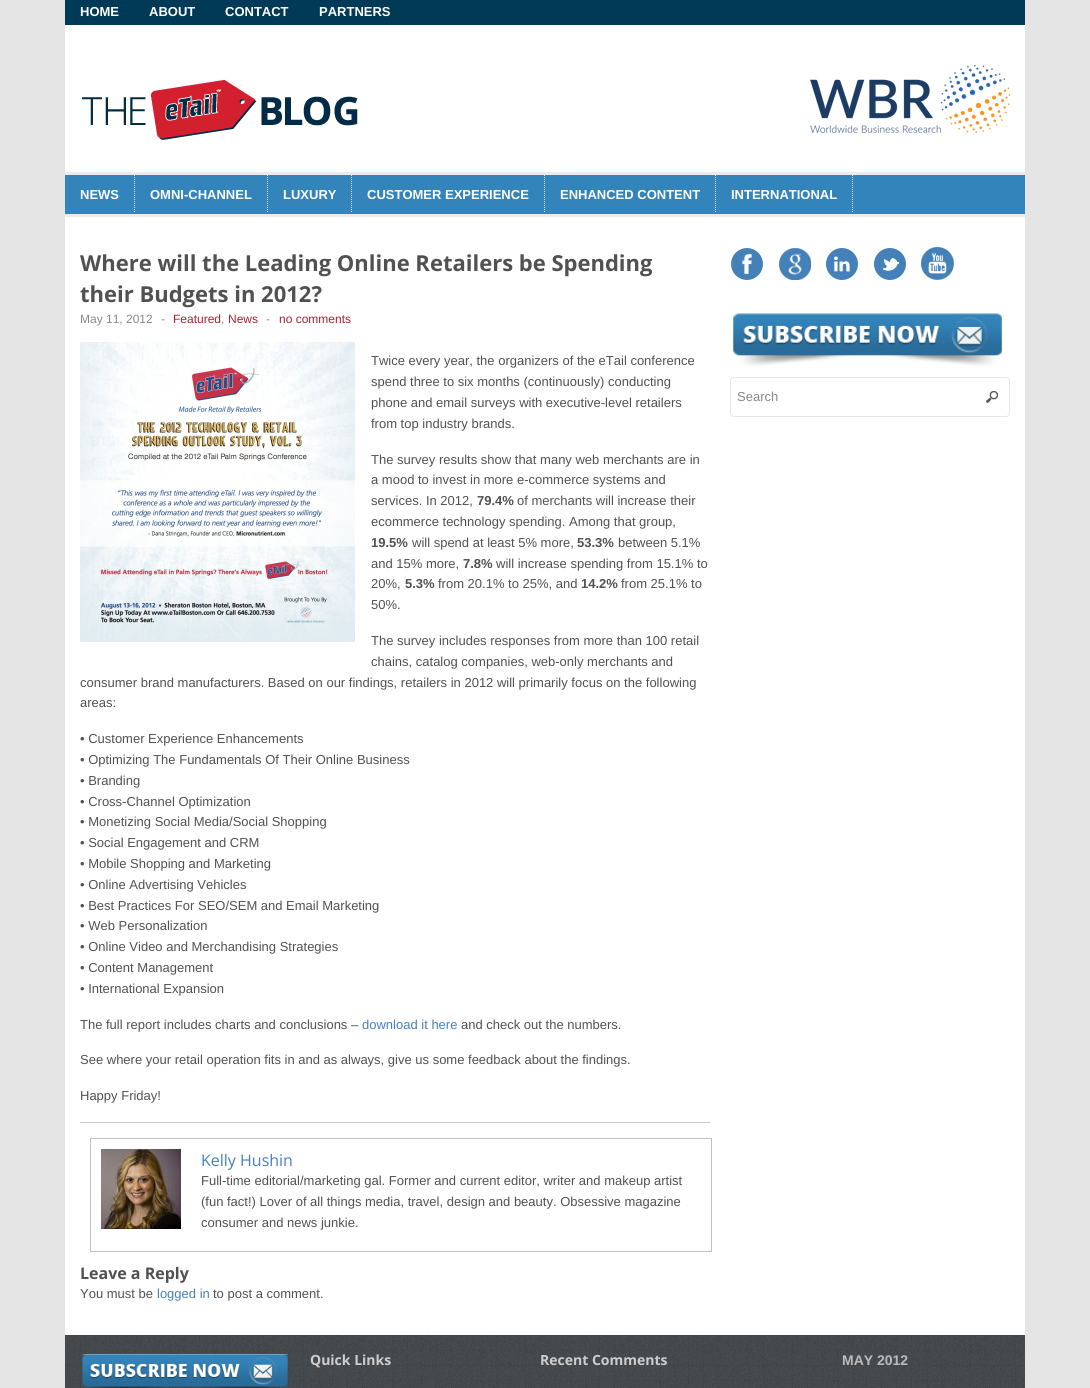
#include <cairo.h>
#include <math.h>
#include <stddef.h>

typedef struct { double x, y; const char *s; } line_t;
typedef struct { double x, y, w, h; unsigned color; } box_t;

static void ink(cairo_t *ctx, unsigned color) {
    cairo_set_source_rgb(ctx, (color >> 16) / 255.0, (color >> 8 & 255) / 255.0, (color & 255) / 255.0);
}

static void round_path(cairo_t *ctx, double x, double y, double w, double h, double r) {
    cairo_new_sub_path(ctx);
    cairo_arc(ctx, x + w - r, y + h - r, r, 0, M_PI / 2);
    cairo_arc(ctx, x + r, y + h - r, r, M_PI / 2, M_PI);
    cairo_arc(ctx, x + r, y + r, r, M_PI, 1.5 * M_PI);
    cairo_arc(ctx, x + w - r, y + r, r, 1.5 * M_PI, 2 * M_PI);
    cairo_close_path(ctx);
}

static void paste(cairo_t *ctx, const char *path, double x, double y, double w, double h) {
    cairo_surface_t *image = cairo_image_surface_create_from_png(path);
    cairo_save(ctx);
    cairo_set_source_surface(ctx, image, x, y);
    cairo_rectangle(ctx, x, y, w, h);
    cairo_fill(ctx);
    cairo_restore(ctx);
    cairo_surface_destroy(image);
}

int main(void) {
    cairo_surface_t *surface = cairo_image_surface_create(CAIRO_FORMAT_RGB24, 1090, 1388);
    cairo_t *ctx = cairo_create(surface);
    cairo_font_options_t *options = cairo_font_options_create();
    cairo_font_options_set_hint_metrics(options, CAIRO_HINT_METRICS_OFF);
    cairo_font_options_set_hint_style(options, CAIRO_HINT_STYLE_NONE);
    cairo_set_font_options(ctx, options);
    cairo_set_miter_limit(ctx, 4);
    ink(ctx, 0xE5E5E5);
    cairo_paint(ctx);
    ink(ctx, 0xFFFFFF);
    cairo_rectangle(ctx, 65, 25, 960, 1310);
    cairo_fill(ctx);
    ink(ctx, 0x003A56);
    cairo_rectangle(ctx, 65, 0, 960, 25);
    cairo_fill(ctx);
    cairo_select_font_face(ctx, "Liberation Sans", CAIRO_FONT_SLANT_NORMAL, CAIRO_FONT_WEIGHT_BOLD);
    cairo_set_font_size(ctx, 13);
    ink(ctx, 0xFFFFFF);
    {
        static const line_t items[] = {
            {80, 16, "HOME"},
            {149, 16, "ABOUT"},
            {225, 16, "CONTACT"},
            {319, 16, "PARTNERS"},
        };
        for (size_t i = 0; i < sizeof items / sizeof *items; i++) {
            cairo_move_to(ctx, items[i].x, items[i].y);
            cairo_show_text(ctx, items[i].s);
        }
    }
    paste(ctx, "media/1.png", 82, 80, 276, 60);
    paste(ctx, "media/2.png", 810, 65, 200, 68);
    {
        static const box_t items[] = {
            {65, 175, 960, 39, 0x3384BB},
            {65, 172, 960, 3, 0xEBEBEB},
            {65, 214, 960, 3, 0xEBEBEB},
        };
        for (size_t i = 0; i < sizeof items / sizeof *items; i++) {
            ink(ctx, items[i].color);
            cairo_rectangle(ctx, items[i].x, items[i].y, items[i].w, items[i].h);
            cairo_fill(ctx);
        }
    }
    cairo_new_path(ctx);
    cairo_move_to(ctx, 134.5, 175);
    cairo_line_to(ctx, 134.5, 213);
    ink(ctx, 0xDDDDDD);
    cairo_set_line_width(ctx, 1);
    cairo_set_dash(ctx, (double[]){1, 1}, 2, 0);
    cairo_stroke(ctx);
    ink(ctx, 0xFFFFFF);
    cairo_move_to(ctx, 80, 199);
    cairo_show_text(ctx, "NEWS");
    cairo_new_path(ctx);
    cairo_move_to(ctx, 267.5, 175);
    cairo_line_to(ctx, 267.5, 213);
    ink(ctx, 0xDDDDDD);
    cairo_stroke(ctx);
    ink(ctx, 0xFFFFFF);
    cairo_move_to(ctx, 150, 199);
    cairo_show_text(ctx, "OMNI-CHANNEL");
    cairo_new_path(ctx);
    cairo_move_to(ctx, 351.5, 175);
    cairo_line_to(ctx, 351.5, 213);
    ink(ctx, 0xDDDDDD);
    cairo_stroke(ctx);
    ink(ctx, 0xFFFFFF);
    cairo_move_to(ctx, 283, 199);
    cairo_show_text(ctx, "LUXURY");
    cairo_new_path(ctx);
    cairo_move_to(ctx, 544.5, 175);
    cairo_line_to(ctx, 544.5, 213);
    ink(ctx, 0xDDDDDD);
    cairo_stroke(ctx);
    ink(ctx, 0xFFFFFF);
    cairo_move_to(ctx, 367, 199);
    cairo_show_text(ctx, "CUSTOMER EXPERIENCE");
    cairo_new_path(ctx);
    cairo_move_to(ctx, 715.5, 175);
    cairo_line_to(ctx, 715.5, 213);
    ink(ctx, 0xDDDDDD);
    cairo_stroke(ctx);
    ink(ctx, 0xFFFFFF);
    cairo_move_to(ctx, 560, 199);
    cairo_show_text(ctx, "ENHANCED CONTENT");
    cairo_new_path(ctx);
    cairo_move_to(ctx, 852.5, 175);
    cairo_line_to(ctx, 852.5, 213);
    ink(ctx, 0xDDDDDD);
    cairo_stroke(ctx);
    ink(ctx, 0xFFFFFF);
    cairo_move_to(ctx, 731, 199);
    cairo_show_text(ctx, "INTERNATIONAL");
    ink(ctx, 0xCCCCCC);
    cairo_rectangle(ctx, 80, 1122, 630, 1);
    cairo_fill(ctx);
    cairo_select_font_face(ctx, "Open Sans", CAIRO_FONT_SLANT_NORMAL, CAIRO_FONT_WEIGHT_BOLD);
    cairo_set_font_size(ctx, 22);
    ink(ctx, 0x515151);
    cairo_move_to(ctx, 80, 271);
    cairo_show_text(ctx, "Where will the Leading Online Retailers be Spending");
    cairo_move_to(ctx, 80, 302);
    cairo_show_text(ctx, "their Budgets in 2012?");
    cairo_select_font_face(ctx, "Liberation Sans", CAIRO_FONT_SLANT_NORMAL, CAIRO_FONT_WEIGHT_NORMAL);
    cairo_set_font_size(ctx, 12);
    ink(ctx, 0x888888);
    cairo_move_to(ctx, 80, 323);
    cairo_show_text(ctx, "May 11, 2012");
    cairo_move_to(ctx, 161, 323);
    cairo_show_text(ctx, "-");
    ink(ctx, 0xAB2031);
    cairo_move_to(ctx, 173, 323);
    cairo_show_text(ctx, "Featured");
    cairo_move_to(ctx, 228, 323);
    cairo_show_text(ctx, "News");
    ink(ctx, 0x888888);
    cairo_move_to(ctx, 266, 323);
    cairo_show_text(ctx, "-");
    ink(ctx, 0xAB2031);
    cairo_move_to(ctx, 279, 323);
    cairo_show_text(ctx, "no comments");
    ink(ctx, 0x888888);
    cairo_move_to(ctx, 221, 323);
    cairo_show_text(ctx, ",");
    paste(ctx, "media/3.png", 80, 342, 275, 300);
    cairo_set_font_size(ctx, 13);
    ink(ctx, 0x515151);
    {
        static const line_t items[] = {
            {371, 365, "Twice every year, the organizers of the eTail conference"},
            {371, 386, "spend three to six months (continuously) conducting"},
            {371, 407, "phone and email surveys with executive-level retailers"},
            {371, 428, "from top industry brands."},
            {371, 464, "The survey results show that many web merchants are in"},
            {371, 484, "a mood to invest in more e-commerce systems and"},
            {371, 505, "services. In 2012,"},
        };
        for (size_t i = 0; i < sizeof items / sizeof *items; i++) {
            cairo_move_to(ctx, items[i].x, items[i].y);
            cairo_show_text(ctx, items[i].s);
        }
    }
    cairo_select_font_face(ctx, "Liberation Sans", CAIRO_FONT_SLANT_NORMAL, CAIRO_FONT_WEIGHT_BOLD);
    cairo_move_to(ctx, 477, 505);
    cairo_show_text(ctx, "79.4%");
    cairo_select_font_face(ctx, "Liberation Sans", CAIRO_FONT_SLANT_NORMAL, CAIRO_FONT_WEIGHT_NORMAL);
    cairo_move_to(ctx, 517, 505);
    cairo_show_text(ctx, "of merchants will increase their");
    cairo_move_to(ctx, 371, 526);
    cairo_show_text(ctx, "ecommerce technology spending. Among that group,");
    cairo_select_font_face(ctx, "Liberation Sans", CAIRO_FONT_SLANT_NORMAL, CAIRO_FONT_WEIGHT_BOLD);
    cairo_move_to(ctx, 371, 547);
    cairo_show_text(ctx, "19.5%");
    cairo_select_font_face(ctx, "Liberation Sans", CAIRO_FONT_SLANT_NORMAL, CAIRO_FONT_WEIGHT_NORMAL);
    cairo_move_to(ctx, 412, 547);
    cairo_show_text(ctx, "will spend at least 5% more,");
    cairo_select_font_face(ctx, "Liberation Sans", CAIRO_FONT_SLANT_NORMAL, CAIRO_FONT_WEIGHT_BOLD);
    cairo_move_to(ctx, 577, 547);
    cairo_show_text(ctx, "53.3%");
    cairo_select_font_face(ctx, "Liberation Sans", CAIRO_FONT_SLANT_NORMAL, CAIRO_FONT_WEIGHT_NORMAL);
    cairo_move_to(ctx, 618, 547);
    cairo_show_text(ctx, "between 5.1%");
    cairo_move_to(ctx, 371, 568);
    cairo_show_text(ctx, "and 15% more,");
    cairo_select_font_face(ctx, "Liberation Sans", CAIRO_FONT_SLANT_NORMAL, CAIRO_FONT_WEIGHT_BOLD);
    cairo_move_to(ctx, 463, 568);
    cairo_show_text(ctx, "7.8%");
    cairo_select_font_face(ctx, "Liberation Sans", CAIRO_FONT_SLANT_NORMAL, CAIRO_FONT_WEIGHT_NORMAL);
    cairo_move_to(ctx, 496, 568);
    cairo_show_text(ctx, "will increase spending from 15.1% to");
    cairo_move_to(ctx, 371, 588);
    cairo_show_text(ctx, "20%,");
    cairo_select_font_face(ctx, "Liberation Sans", CAIRO_FONT_SLANT_NORMAL, CAIRO_FONT_WEIGHT_BOLD);
    cairo_move_to(ctx, 405, 588);
    cairo_show_text(ctx, "5.3%");
    cairo_select_font_face(ctx, "Liberation Sans", CAIRO_FONT_SLANT_NORMAL, CAIRO_FONT_WEIGHT_NORMAL);
    cairo_move_to(ctx, 438, 588);
    cairo_show_text(ctx, "from 20.1% to 25%, and");
    cairo_select_font_face(ctx, "Liberation Sans", CAIRO_FONT_SLANT_NORMAL, CAIRO_FONT_WEIGHT_BOLD);
    cairo_move_to(ctx, 581, 588);
    cairo_show_text(ctx, "14.2%");
    cairo_select_font_face(ctx, "Liberation Sans", CAIRO_FONT_SLANT_NORMAL, CAIRO_FONT_WEIGHT_NORMAL);
    {
        static const line_t items[] = {
            {621, 588, "from 25.1% to"},
            {371, 609, "50%."},
            {371, 645, "The survey includes responses from more than 100 retail"},
            {371, 666, "chains, catalog companies, web-only merchants and"},
            {80, 687, "consumer brand manufacturers. Based on our findings, retailers in 2012 will primarily focus on the following"},
            {80, 707, "areas:"},
            {80, 743, "• Customer Experience Enhancements"},
            {80, 764, "• Optimizing The Fundamentals Of Their Online Business"},
            {80, 785, "• Branding"},
            {80, 806, "• Cross-Channel Optimization"},
            {80, 826, "• Monetizing Social Media/Social Shopping"},
            {80, 847, "• Social Engagement and CRM"},
            {80, 868, "• Mobile Shopping and Marketing"},
            {80, 889, "• Online Advertising Vehicles"},
            {80, 910, "• Best Practices For SEO/SEM and Email Marketing"},
            {80, 930, "• Web Personalization"},
            {80, 951, "• Online Video and Merchandising Strategies"},
            {80, 972, "• Content Management"},
            {80, 993, "• International Expansion"},
            {80, 1029, "The full report includes charts and conclusions –"},
        };
        for (size_t i = 0; i < sizeof items / sizeof *items; i++) {
            cairo_move_to(ctx, items[i].x, items[i].y);
            cairo_show_text(ctx, items[i].s);
        }
    }
    ink(ctx, 0x4581B9);
    cairo_move_to(ctx, 362, 1029);
    cairo_show_text(ctx, "download it here");
    ink(ctx, 0x515151);
    {
        static const line_t items[] = {
            {461, 1029, "and check out the numbers."},
            {80, 1064, "See where your retail operation fits in and as always, give us some feedback about the findings."},
            {80, 1100, "Happy Friday!"},
        };
        for (size_t i = 0; i < sizeof items / sizeof *items; i++) {
            cairo_move_to(ctx, items[i].x, items[i].y);
            cairo_show_text(ctx, items[i].s);
        }
    }
    cairo_rectangle(ctx, 90.5, 1138.5, 621, 113);
    ink(ctx, 0xC0C0C0);
    cairo_set_dash(ctx, NULL, 0, 0);
    cairo_stroke(ctx);
    paste(ctx, "media/4.png", 101, 1149, 80, 80);
    cairo_select_font_face(ctx, "Open Sans", CAIRO_FONT_SLANT_NORMAL, CAIRO_FONT_WEIGHT_NORMAL);
    cairo_set_font_size(ctx, 16);
    ink(ctx, 0x4581B9);
    cairo_move_to(ctx, 201, 1166);
    cairo_show_text(ctx, "Kelly Hushin");
    cairo_select_font_face(ctx, "Liberation Sans", CAIRO_FONT_SLANT_NORMAL, CAIRO_FONT_WEIGHT_NORMAL);
    cairo_set_font_size(ctx, 13);
    ink(ctx, 0x515151);
    {
        static const line_t items[] = {
            {201, 1185, "Full-time editorial/marketing gal. Former and current editor, writer and makeup artist"},
            {201, 1206, "(fun fact!) Lover of all things media, travel, design and beauty. Obsessive magazine"},
            {201, 1227, "consumer and news junkie."},
        };
        for (size_t i = 0; i < sizeof items / sizeof *items; i++) {
            cairo_move_to(ctx, items[i].x, items[i].y);
            cairo_show_text(ctx, items[i].s);
        }
    }
    cairo_select_font_face(ctx, "Open Sans", CAIRO_FONT_SLANT_NORMAL, CAIRO_FONT_WEIGHT_BOLD);
    cairo_set_font_size(ctx, 16);
    cairo_move_to(ctx, 80, 1279);
    cairo_show_text(ctx, "Leave a Reply");
    cairo_select_font_face(ctx, "Liberation Sans", CAIRO_FONT_SLANT_NORMAL, CAIRO_FONT_WEIGHT_NORMAL);
    cairo_set_font_size(ctx, 13);
    cairo_move_to(ctx, 80, 1298);
    cairo_show_text(ctx, "You must be");
    ink(ctx, 0x4581B9);
    cairo_move_to(ctx, 157, 1298);
    cairo_show_text(ctx, "logged in");
    ink(ctx, 0x515151);
    cairo_move_to(ctx, 213, 1298);
    cairo_show_text(ctx, "to post a comment.");
    paste(ctx, "media/5.png", 731, 248, 32, 32);
    paste(ctx, "media/6.png", 779, 248, 32, 32);
    paste(ctx, "media/7.png", 826, 248, 32, 32);
    paste(ctx, "media/8.png", 874, 248, 32, 32);
    paste(ctx, "media/9.png", 921, 247, 33, 33);
    paste(ctx, "media/10.png", 733, 313, 269, 53);
    paste(ctx, "media/11.png", 986, 391, 12, 12);
    round_path(ctx, 730.5, 377.5, 279, 39, 3.5);
    ink(ctx, 0xE7E7E7);
    cairo_stroke(ctx);
    ink(ctx, 0x888888);
    cairo_move_to(ctx, 737, 401);
    cairo_show_text(ctx, "Search");
    paste(ctx, "media/12.png", 65, 1335, 960, 53);
    paste(ctx, "media/13.png", 82, 1354, 206, 34);
    cairo_select_font_face(ctx, "Open Sans", CAIRO_FONT_SLANT_NORMAL, CAIRO_FONT_WEIGHT_BOLD);
    cairo_set_font_size(ctx, 14);
    ink(ctx, 0xCDCDCD);
    cairo_move_to(ctx, 310, 1365);
    cairo_show_text(ctx, "Quick Links");
    cairo_move_to(ctx, 540, 1365);
    cairo_show_text(ctx, "Recent Comments");
    cairo_select_font_face(ctx, "Liberation Sans", CAIRO_FONT_SLANT_NORMAL, CAIRO_FONT_WEIGHT_BOLD);
    ink(ctx, 0xBBBBBB);
    cairo_move_to(ctx, 842, 1365);
    cairo_show_text(ctx, "MAY 2012");
    cairo_surface_write_to_png(surface, "image.png");
    cairo_font_options_destroy(options);
    cairo_destroy(ctx);
    cairo_surface_destroy(surface);
    return 0;
}
